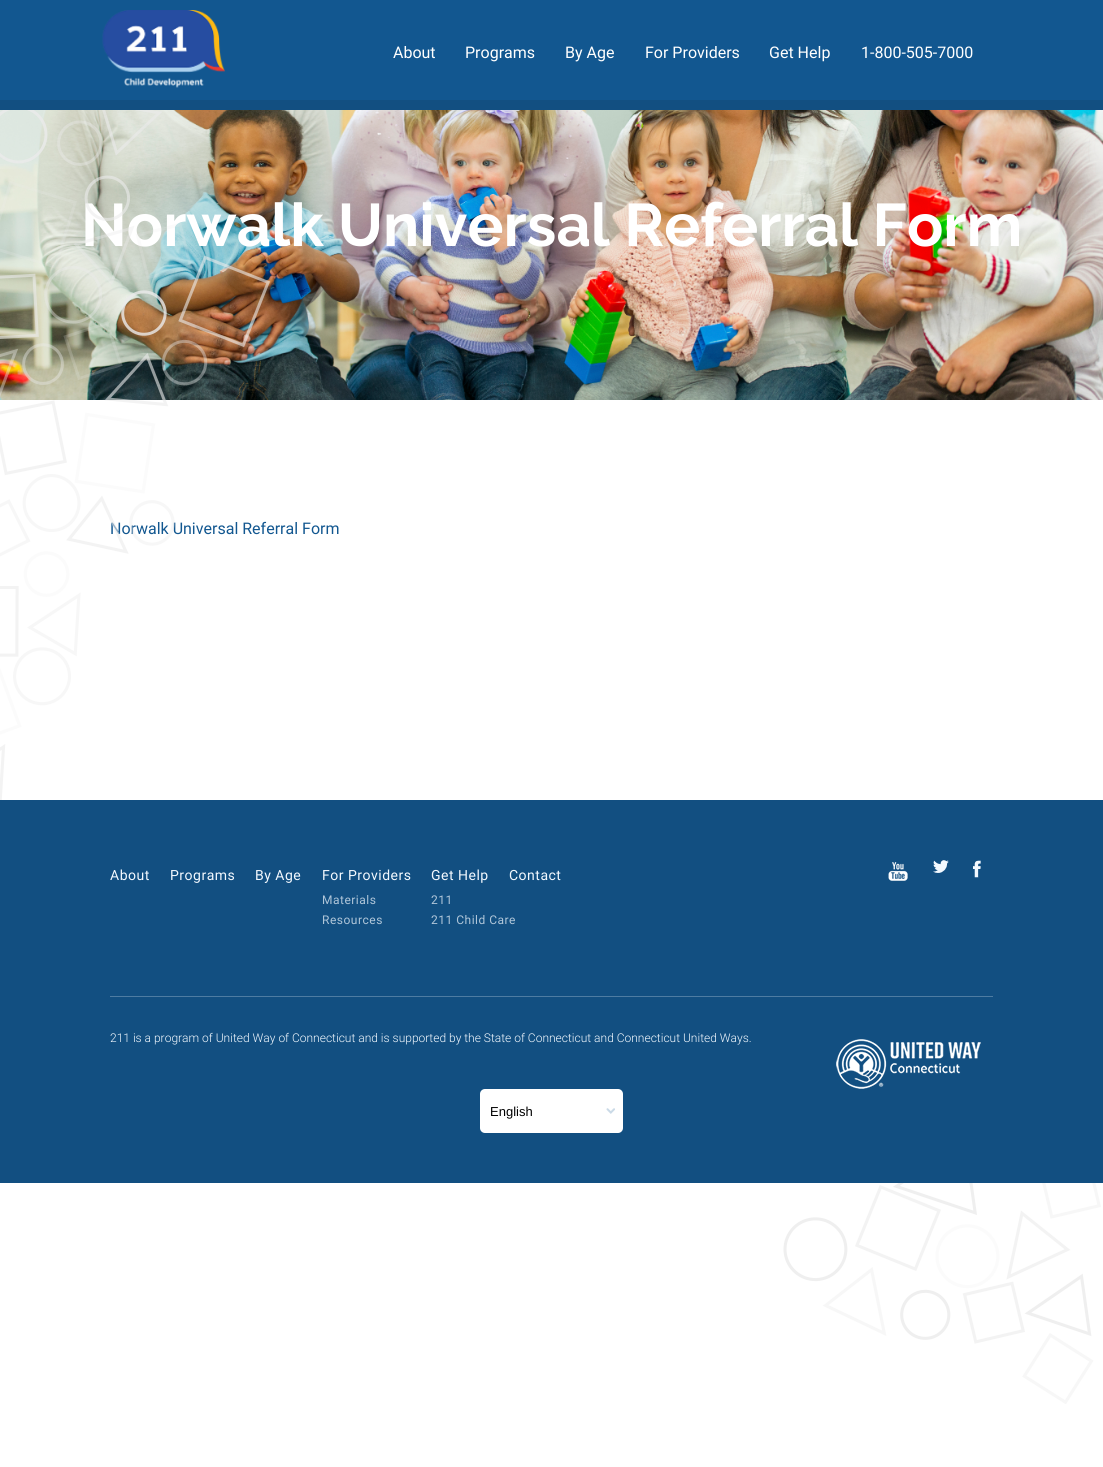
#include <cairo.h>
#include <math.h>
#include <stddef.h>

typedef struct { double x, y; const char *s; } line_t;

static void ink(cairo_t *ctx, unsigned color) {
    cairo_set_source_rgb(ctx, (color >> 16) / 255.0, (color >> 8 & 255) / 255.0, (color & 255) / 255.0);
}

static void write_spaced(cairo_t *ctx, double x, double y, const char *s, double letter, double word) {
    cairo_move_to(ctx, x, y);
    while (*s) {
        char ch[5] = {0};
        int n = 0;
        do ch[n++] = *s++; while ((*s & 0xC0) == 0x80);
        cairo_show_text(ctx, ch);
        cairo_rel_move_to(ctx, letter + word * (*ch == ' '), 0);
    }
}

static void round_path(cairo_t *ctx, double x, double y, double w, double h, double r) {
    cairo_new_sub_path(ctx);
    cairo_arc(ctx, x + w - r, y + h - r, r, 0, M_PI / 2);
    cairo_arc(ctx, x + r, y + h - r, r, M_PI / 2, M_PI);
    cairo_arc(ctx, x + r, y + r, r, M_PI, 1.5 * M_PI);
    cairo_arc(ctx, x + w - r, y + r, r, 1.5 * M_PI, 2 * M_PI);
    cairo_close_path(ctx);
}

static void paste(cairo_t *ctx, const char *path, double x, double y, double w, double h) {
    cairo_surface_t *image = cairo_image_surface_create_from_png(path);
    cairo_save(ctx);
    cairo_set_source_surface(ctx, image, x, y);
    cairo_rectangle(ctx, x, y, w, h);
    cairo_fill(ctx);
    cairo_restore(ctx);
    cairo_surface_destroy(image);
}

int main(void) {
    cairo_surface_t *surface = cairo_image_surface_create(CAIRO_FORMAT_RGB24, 1103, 1467);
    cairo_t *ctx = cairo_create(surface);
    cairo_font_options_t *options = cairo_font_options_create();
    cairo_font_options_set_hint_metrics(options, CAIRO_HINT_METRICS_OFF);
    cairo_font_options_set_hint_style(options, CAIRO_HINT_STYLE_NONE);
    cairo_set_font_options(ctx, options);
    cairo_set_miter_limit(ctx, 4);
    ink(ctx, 0xFFFFFF);
    cairo_paint(ctx);
    ink(ctx, 0x125790);
    cairo_rectangle(ctx, 0, 0, 1103, 100);
    cairo_fill(ctx);
    ink(ctx, 0x124F81);
    cairo_rectangle(ctx, 0, 100, 1103, 10);
    cairo_fill(ctx);
    paste(ctx, "media/1.png", 102, 10, 123, 78);
    cairo_select_font_face(ctx, "Roboto", CAIRO_FONT_SLANT_NORMAL, CAIRO_FONT_WEIGHT_NORMAL);
    cairo_set_font_size(ctx, 16);
    ink(ctx, 0xFFFFFF);
    {
        static const line_t items[] = {
            {393, 58, "About"},
            {465, 58, "Programs"},
            {565, 58, "By Age"},
            {645, 58, "For Providers"},
            {769, 58, "Get Help"},
            {861, 58, "1-800-505-7000"},
        };
        for (size_t i = 0; i < sizeof items / sizeof *items; i++) {
            cairo_move_to(ctx, items[i].x, items[i].y);
            cairo_show_text(ctx, items[i].s);
        }
    }
    paste(ctx, "media/3.png", 0, 110, 1103, 290);
    cairo_select_font_face(ctx, "Raleway", CAIRO_FONT_SLANT_NORMAL, CAIRO_FONT_WEIGHT_BOLD);
    cairo_set_font_size(ctx, 60);
    cairo_move_to(ctx, 81, 246);
    cairo_show_text(ctx, "Norwalk Universal Referral Form");
    cairo_select_font_face(ctx, "Roboto", CAIRO_FONT_SLANT_NORMAL, CAIRO_FONT_WEIGHT_NORMAL);
    cairo_set_font_size(ctx, 16);
    ink(ctx, 0x125790);
    cairo_move_to(ctx, 110, 534);
    cairo_show_text(ctx, "Norwalk Universal Referral Form");
    paste(ctx, "media/2.png", 0, 110, 270, 690);
    ink(ctx, 0x124F81);
    cairo_rectangle(ctx, 0, 800, 1103, 383);
    cairo_fill(ctx);
    cairo_set_font_size(ctx, 14);
    ink(ctx, 0xF3F9FF);
    {
        static const line_t items[] = {
            {110, 880, "About"},
            {170, 880, "Programs"},
            {255, 880, "By Age"},
            {322, 880, "For Providers"},
        };
        for (size_t i = 0; i < sizeof items / sizeof *items; i++) {
            write_spaced(ctx, items[i].x, items[i].y, items[i].s, 0.5, 0);
        }
    }
    cairo_set_font_size(ctx, 12);
    ink(ctx, 0xB0C6D9);
    write_spaced(ctx, 322, 904, "Materials", 0.5, 0);
    write_spaced(ctx, 322, 924, "Resources", 0.5, 0);
    cairo_set_font_size(ctx, 14);
    ink(ctx, 0xF3F9FF);
    write_spaced(ctx, 431, 880, "Get Help", 0.5, 0);
    cairo_set_font_size(ctx, 12);
    ink(ctx, 0xB0C6D9);
    write_spaced(ctx, 431, 904, "211", 0.5, 0);
    write_spaced(ctx, 431, 924, "211 Child Care", 0.5, 0);
    cairo_set_font_size(ctx, 14);
    ink(ctx, 0xF3F9FF);
    write_spaced(ctx, 509, 880, "Contact", 0.5, 0);
    paste(ctx, "media/4.png", 888, 862, 20, 19);
    paste(ctx, "media/5.png", 933, 860, 16, 13);
    paste(ctx, "media/6.png", 973, 860, 8, 18);
    ink(ctx, 0x4E7CA2);
    cairo_rectangle(ctx, 110, 996, 883, 1);
    cairo_fill(ctx);
    cairo_select_font_face(ctx, "Roboto Light", CAIRO_FONT_SLANT_NORMAL, CAIRO_FONT_WEIGHT_NORMAL);
    cairo_set_font_size(ctx, 12);
    ink(ctx, 0xF3F9FF);
    cairo_move_to(ctx, 110, 1042);
    cairo_show_text(ctx, "211 is a program of United Way of Connecticut and is supported by the State of Connecticut and Connecticut United Ways.");
    paste(ctx, "media/7.png", 836, 1039, 145, 50);
    ink(ctx, 0xFFFFFF);
    round_path(ctx, 480, 1089, 143, 44, 5);
    cairo_fill(ctx);
    paste(ctx, "media/8.png", 606, 1108, 9, 6);
    cairo_select_font_face(ctx, "Liberation Sans", CAIRO_FONT_SLANT_NORMAL, CAIRO_FONT_WEIGHT_NORMAL);
    cairo_set_font_size(ctx, 13);
    ink(ctx, 0x000000);
    cairo_move_to(ctx, 490, 1116);
    cairo_show_text(ctx, "English");
    paste(ctx, "media/9.png", 783, 1183, 318, 221);
    cairo_surface_write_to_png(surface, "image.png");
    cairo_font_options_destroy(options);
    cairo_destroy(ctx);
    cairo_surface_destroy(surface);
    return 0;
}
